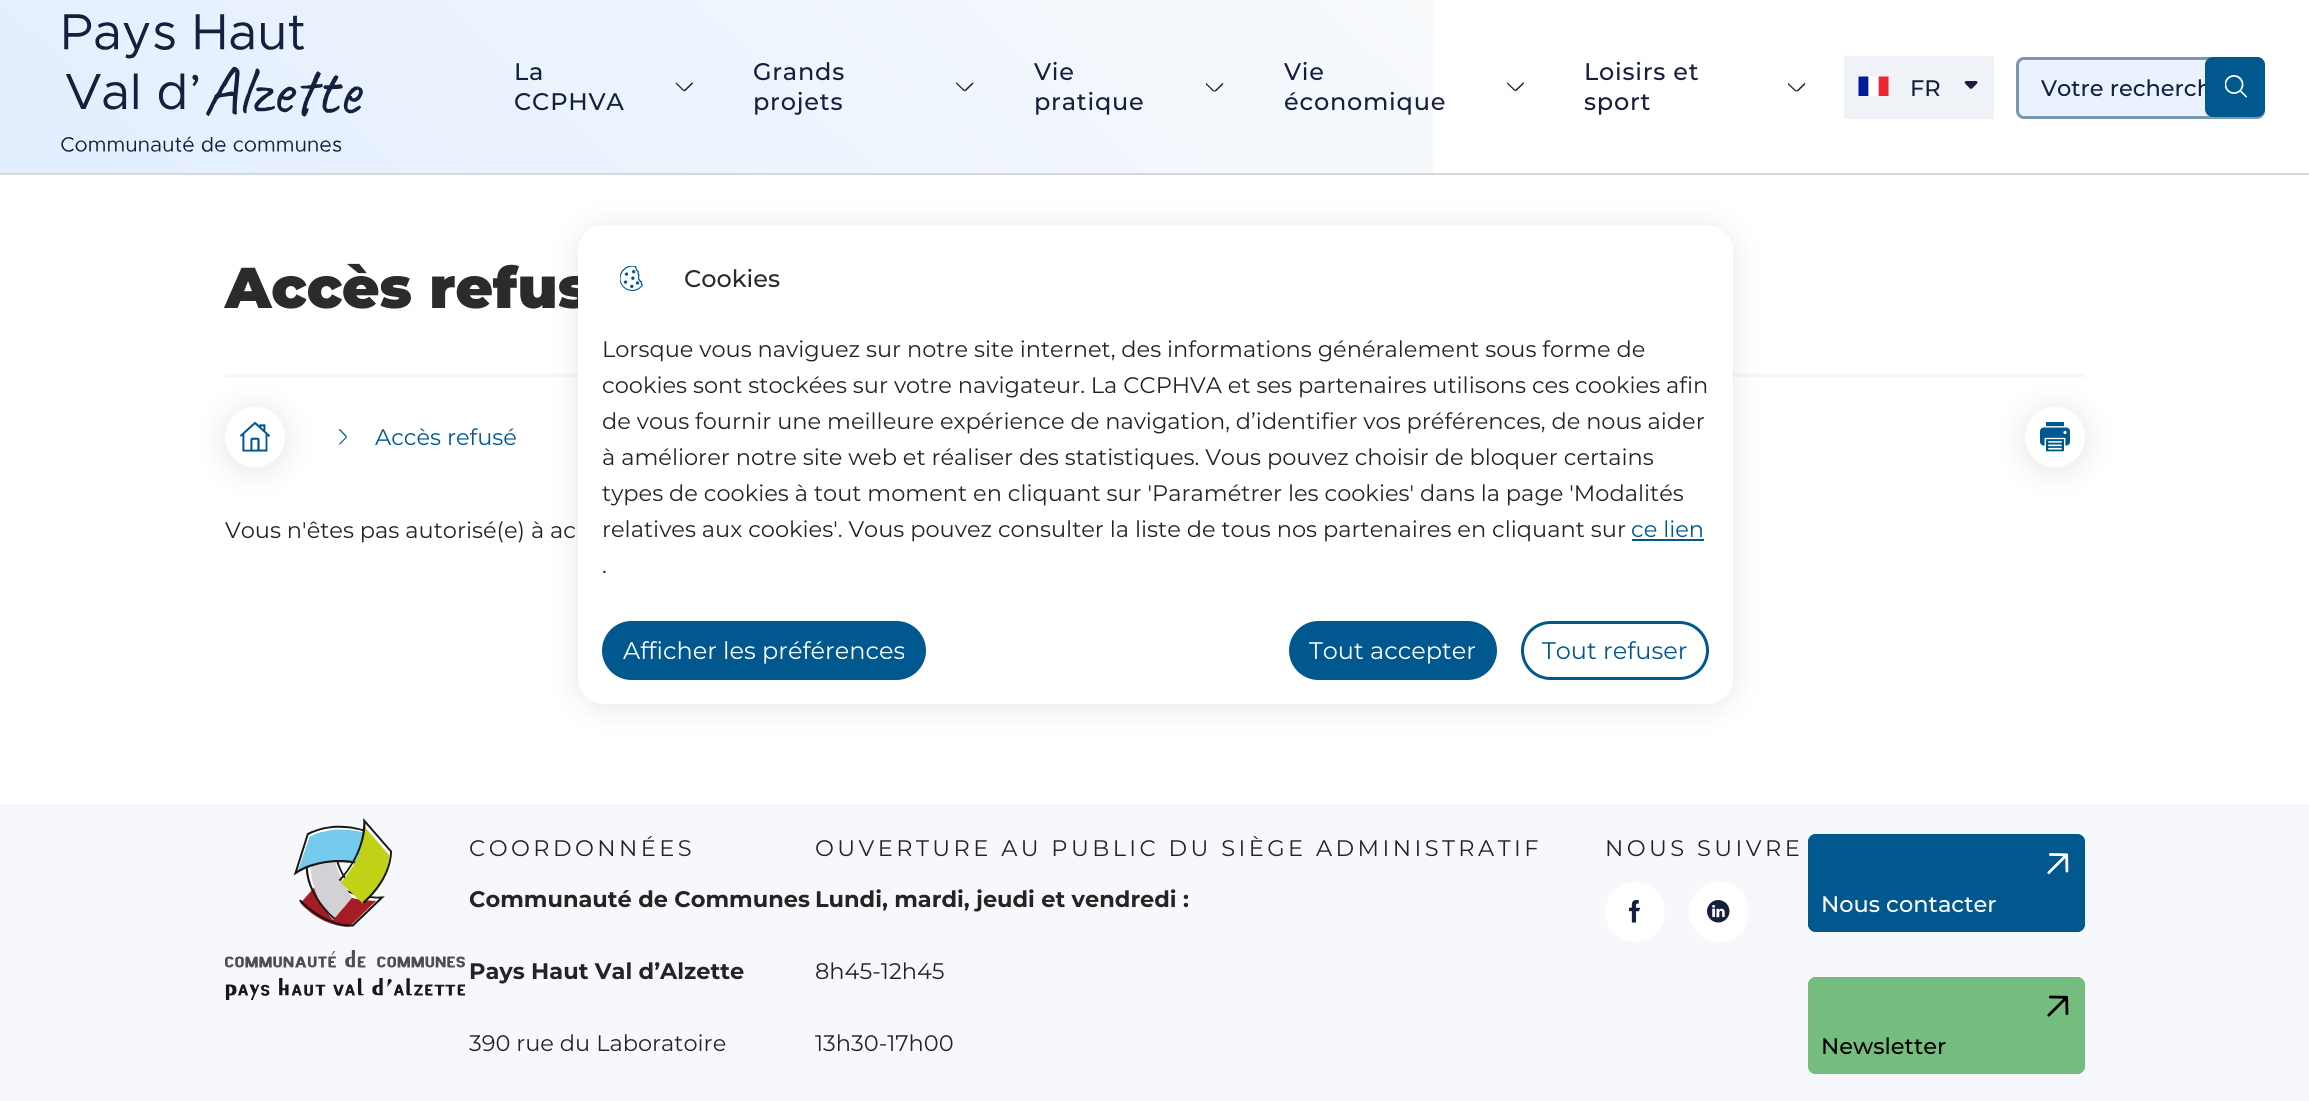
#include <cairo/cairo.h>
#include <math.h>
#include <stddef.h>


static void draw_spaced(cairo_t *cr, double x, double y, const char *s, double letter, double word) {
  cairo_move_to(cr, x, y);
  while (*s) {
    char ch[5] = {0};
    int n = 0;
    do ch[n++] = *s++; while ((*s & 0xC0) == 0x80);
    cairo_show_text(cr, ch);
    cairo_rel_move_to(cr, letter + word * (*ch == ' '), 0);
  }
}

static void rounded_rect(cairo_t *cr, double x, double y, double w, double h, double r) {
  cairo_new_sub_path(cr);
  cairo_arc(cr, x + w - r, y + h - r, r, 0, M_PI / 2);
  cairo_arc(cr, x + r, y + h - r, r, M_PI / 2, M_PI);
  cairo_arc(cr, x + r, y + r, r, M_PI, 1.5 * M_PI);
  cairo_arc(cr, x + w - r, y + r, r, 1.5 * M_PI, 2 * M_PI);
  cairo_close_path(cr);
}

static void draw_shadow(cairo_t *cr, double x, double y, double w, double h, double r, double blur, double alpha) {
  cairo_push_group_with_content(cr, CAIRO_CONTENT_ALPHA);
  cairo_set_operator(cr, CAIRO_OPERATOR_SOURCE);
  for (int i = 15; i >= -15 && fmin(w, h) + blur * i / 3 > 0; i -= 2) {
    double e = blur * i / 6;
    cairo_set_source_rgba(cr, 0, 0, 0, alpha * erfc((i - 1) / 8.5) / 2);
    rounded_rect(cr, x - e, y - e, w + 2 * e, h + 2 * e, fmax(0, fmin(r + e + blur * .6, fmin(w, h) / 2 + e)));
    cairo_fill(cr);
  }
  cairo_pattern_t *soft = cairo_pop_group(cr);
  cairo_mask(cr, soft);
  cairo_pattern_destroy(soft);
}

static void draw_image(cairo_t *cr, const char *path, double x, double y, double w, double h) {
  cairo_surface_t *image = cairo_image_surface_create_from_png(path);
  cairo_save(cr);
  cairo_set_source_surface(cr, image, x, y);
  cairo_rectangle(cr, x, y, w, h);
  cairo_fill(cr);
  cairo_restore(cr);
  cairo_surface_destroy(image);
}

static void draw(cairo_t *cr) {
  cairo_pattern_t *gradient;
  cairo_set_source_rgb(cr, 1, 1, 1);
  cairo_paint(cr);
  cairo_set_source_rgb(cr, 216 / 255.0, 216 / 255.0, 216 / 255.0);
  cairo_rectangle(cr, 0, 173, 2309, 2);
  cairo_fill(cr);
  gradient = cairo_pattern_create_linear(1093, -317, 340, 490);
  cairo_pattern_add_color_stop_rgba(gradient, 0, 248 / 255.0, 250 / 255.0, 252 / 255.0, 1);
  cairo_pattern_add_color_stop_rgba(gradient, 1, 226 / 255.0, 238 / 255.0, 254 / 255.0, 1);
  cairo_set_source(cr, gradient);
  cairo_pattern_destroy(gradient);
  cairo_rectangle(cr, 0, 0, 1433, 173);
  cairo_fill(cr);
  draw_image(cr, "images/1.png", 61, 14, 302, 138);
  draw_image(cr, "images/2.png", 675, 82, 18, 10);
  draw_image(cr, "images/3.png", 956, 82, 18, 10);
  draw_image(cr, "images/4.png", 1205, 83, 19, 9);
  draw_image(cr, "images/5.png", 1506, 82, 19, 9);
  draw_image(cr, "images/6.png", 1787, 83, 19, 9);
  cairo_set_source_rgb(cr, 239 / 255.0, 243 / 255.0, 248 / 255.0);
  cairo_rectangle(cr, 1844, 56, 150, 63);
  cairo_fill(cr);
  draw_image(cr, "images/7.png", 1858, 76, 31, 20);
  draw_image(cr, "images/8.png", 1964, 81, 14, 8);
  cairo_set_source_rgb(cr, 235 / 255.0, 242 / 255.0, 1);
  rounded_rect(cr, 2017.5, 58.5, 246, 59, 6.5);
  cairo_fill_preserve(cr);
  cairo_set_source_rgb(cr, 123 / 255.0, 152 / 255.0, 173 / 255.0);
  cairo_set_line_width(cr, 3);
  cairo_stroke(cr);
  cairo_set_source_rgb(cr, 247 / 255.0, 247 / 255.0, 247 / 255.0);
  cairo_rectangle(cr, 225, 374, 1860, 3);
  cairo_fill(cr);
  cairo_set_source_rgb(cr, 0, 0, 0);
  draw_shadow(cr, 225, 410, 60, 60, 30, 15, 0.1);
  cairo_set_source_rgb(cr, 1, 1, 1);
  cairo_arc(cr, 255, 437, 30, 0, 2 * M_PI);
  cairo_fill(cr);
  draw_image(cr, "images/10.png", 240, 422, 30, 30);
  draw_image(cr, "images/11.png", 339, 429, 8, 16);
  cairo_set_source_rgb(cr, 0, 0, 0);
  draw_shadow(cr, 2025, 410, 60, 60, 30, 15, 0.1);
  cairo_set_source_rgb(cr, 1, 1, 1);
  cairo_arc(cr, 2055, 437, 30, 0, 2 * M_PI);
  cairo_fill(cr);
  draw_image(cr, "images/12.png", 2040, 422, 30, 30);
  cairo_set_source_rgb(cr, 246 / 255.0, 248 / 255.0, 251 / 255.0);
  cairo_rectangle(cr, 0, 804, 2309, 297);
  cairo_fill(cr);
  draw_image(cr, "images/13.png", 225, 818, 240, 182);
  cairo_set_source_rgb(cr, 1, 1, 1);
  cairo_arc(cr, 1635, 912, 30, 0, 2 * M_PI);
  cairo_fill(cr);
  draw_image(cr, "images/14.png", 1629, 900, 12, 23);
  cairo_arc(cr, 1719, 912, 30, 0, 2 * M_PI);
  cairo_fill(cr);
  draw_image(cr, "images/15.png", 1707, 900, 23, 23);
  cairo_set_source_rgb(cr, 0, 88 / 255.0, 143 / 255.0);
  rounded_rect(cr, 1808, 834, 277, 98, 8);
  cairo_fill(cr);
  draw_image(cr, "images/16.png", 2047, 853, 22, 21);
  rounded_rect(cr, 1809, 835, 275, 96, 7);
  cairo_set_line_width(cr, 2);
  cairo_stroke(cr);
  cairo_set_source_rgb(cr, 117 / 255.0, 189 / 255.0, 126 / 255.0);
  rounded_rect(cr, 1808, 977, 277, 97, 8);
  cairo_fill(cr);
  draw_image(cr, "images/17.png", 2047, 995, 22, 22);
  rounded_rect(cr, 1809, 978, 275, 95, 7);
  cairo_stroke(cr);
  cairo_set_source_rgb(cr, 0, 0, 0);
  draw_shadow(cr, 578, 228, 1155, 479, 26, 15, 0.1);
  cairo_select_font_face(cr, "Montserrat Medium", CAIRO_FONT_SLANT_NORMAL, CAIRO_FONT_WEIGHT_NORMAL);
  cairo_set_font_size(cr, 24);
  cairo_set_source_rgb(cr, 20 / 255.0, 32 / 255.0, 62 / 255.0);
  draw_spaced(cr, 514, 80, "La", 0.75, 0);
  draw_spaced(cr, 514, 110, "CCPHVA", 0.75, 0);
  draw_spaced(cr, 753, 80, "Grands", 0.75, 0);
  draw_spaced(cr, 753, 110, "projets", 0.75, 0);
  draw_spaced(cr, 1034, 80, "Vie", 0.75, 0);
  draw_spaced(cr, 1034, 110, "pratique", 0.75, 0);
  draw_spaced(cr, 1284, 80, "Vie", 0.75, 0);
  draw_spaced(cr, 1284, 110, "économique", 0.75, 0);
  draw_spaced(cr, 1584, 80, "Loisirs et", 0.75, 0);
  draw_spaced(cr, 1584, 110, "sport", 0.75, 0);
  cairo_set_font_size(cr, 22.5);
  cairo_move_to(cr, 1910, 96);
  cairo_show_text(cr, "FR");
  cairo_move_to(cr, 2041, 96);
  cairo_show_text(cr, "Votre recherch");
  cairo_set_source_rgb(cr, 0, 88 / 255.0, 143 / 255.0);
  rounded_rect(cr, 2205, 57, 60, 60, 8);
  cairo_fill(cr);
  draw_image(cr, "images/9.png", 2225, 75, 22, 23);
  cairo_select_font_face(cr, "Montserrat Black", CAIRO_FONT_SLANT_NORMAL, CAIRO_FONT_WEIGHT_NORMAL);
  cairo_set_font_size(cr, 57.5);
  cairo_set_source_rgb(cr, 43 / 255.0, 43 / 255.0, 43 / 255.0);
  cairo_move_to(cr, 225, 308);
  cairo_show_text(cr, "Accès refus");
  cairo_select_font_face(cr, "Montserrat", CAIRO_FONT_SLANT_NORMAL, CAIRO_FONT_WEIGHT_NORMAL);
  cairo_set_font_size(cr, 22.5);
  cairo_set_source_rgb(cr, 0, 88 / 255.0, 143 / 255.0);
  cairo_move_to(cr, 375, 445);
  cairo_show_text(cr, "Accès refusé");
  cairo_set_source_rgb(cr, 37 / 255.0, 36 / 255.0, 36 / 255.0);
  cairo_move_to(cr, 225, 538);
  cairo_show_text(cr, "Vous n'êtes pas autorisé(e) à ac");
  draw_spaced(cr, 469, 856, "COORDONNÉES", 3.45, 0);
  cairo_select_font_face(cr, "Montserrat", CAIRO_FONT_SLANT_NORMAL, CAIRO_FONT_WEIGHT_BOLD);
  cairo_move_to(cr, 469, 907);
  cairo_show_text(cr, "Communauté de Communes");
  cairo_move_to(cr, 469, 979);
  cairo_show_text(cr, "Pays Haut Val d’Alzette");
  cairo_select_font_face(cr, "Montserrat", CAIRO_FONT_SLANT_NORMAL, CAIRO_FONT_WEIGHT_NORMAL);
  cairo_move_to(cr, 469, 1051);
  cairo_show_text(cr, "390 rue du Laboratoire");
  draw_spaced(cr, 815, 856, "OUVERTURE AU PUBLIC DU SIÈGE ADMINISTRATIF", 3.45, 0);
  cairo_select_font_face(cr, "Montserrat", CAIRO_FONT_SLANT_NORMAL, CAIRO_FONT_WEIGHT_BOLD);
  cairo_move_to(cr, 815, 907);
  cairo_show_text(cr, "Lundi, mardi, jeudi et vendredi :");
  cairo_select_font_face(cr, "Montserrat", CAIRO_FONT_SLANT_NORMAL, CAIRO_FONT_WEIGHT_NORMAL);
  cairo_move_to(cr, 815, 979);
  cairo_show_text(cr, "8h45-12h45");
  cairo_move_to(cr, 815, 1051);
  cairo_show_text(cr, "13h30-17h00");
  draw_spaced(cr, 1605, 856, "NOUS SUIVRE", 3.45, 0);
  cairo_select_font_face(cr, "Montserrat Medium", CAIRO_FONT_SLANT_NORMAL, CAIRO_FONT_WEIGHT_NORMAL);
  cairo_set_source_rgb(cr, 1, 1, 1);
  cairo_move_to(cr, 1821, 912);
  cairo_show_text(cr, "Nous contacter");
  cairo_set_source_rgb(cr, 0, 0, 0);
  cairo_move_to(cr, 1821, 1054);
  cairo_show_text(cr, "Newsletter");
  cairo_set_source_rgb(cr, 1, 1, 1);
  rounded_rect(cr, 578, 225, 1155, 479, 26);
  cairo_fill(cr);
  draw_image(cr, "images/18.png", 620, 266, 23, 25);
  cairo_set_font_size(cr, 24);
  cairo_set_source_rgb(cr, 43 / 255.0, 43 / 255.0, 43 / 255.0);
  cairo_move_to(cr, 684, 287);
  cairo_show_text(cr, "Cookies");
  cairo_select_font_face(cr, "Montserrat", CAIRO_FONT_SLANT_NORMAL, CAIRO_FONT_WEIGHT_NORMAL);
  cairo_set_font_size(cr, 22.5);
  cairo_set_source_rgb(cr, 37 / 255.0, 36 / 255.0, 36 / 255.0);
  cairo_move_to(cr, 602, 357);
  cairo_show_text(cr, "Lorsque vous naviguez sur notre site internet, des informations généralement sous forme de");
  cairo_move_to(cr, 602, 393);
  cairo_show_text(cr, "cookies sont stockées sur votre navigateur. La CCPHVA et ses partenaires utilisons ces cookies afin");
  cairo_move_to(cr, 602, 429);
  cairo_show_text(cr, "de vous fournir une meilleure expérience de navigation, d’identifier vos préférences, de nous aider");
  cairo_move_to(cr, 602, 465);
  cairo_show_text(cr, "à améliorer notre site web et réaliser des statistiques. Vous pouvez choisir de bloquer certains");
  cairo_move_to(cr, 602, 501);
  cairo_show_text(cr, "types de cookies à tout moment en cliquant sur 'Paramétrer les cookies' dans la page 'Modalités");
  cairo_move_to(cr, 602, 537);
  cairo_show_text(cr, "relatives aux cookies'. Vous pouvez consulter la liste de tous nos partenaires en cliquant sur");
  cairo_set_source_rgb(cr, 0, 88 / 255.0, 143 / 255.0);
  cairo_move_to(cr, 1631, 537);
  cairo_show_text(cr, "ce lien");
  cairo_rectangle(cr, 1632, 539, 72, 2);
  cairo_fill(cr);
  cairo_set_source_rgb(cr, 37 / 255.0, 36 / 255.0, 36 / 255.0);
  cairo_move_to(cr, 602, 573);
  cairo_show_text(cr, ".");
  cairo_set_source_rgb(cr, 0, 88 / 255.0, 143 / 255.0);
  rounded_rect(cr, 603.5, 622.5, 321, 56, 28);
  cairo_fill_preserve(cr);
  cairo_set_line_width(cr, 3);
  cairo_stroke(cr);
  cairo_set_font_size(cr, 24);
  cairo_set_source_rgb(cr, 1, 1, 1);
  cairo_move_to(cr, 623, 659);
  cairo_show_text(cr, "Afficher les préférences");
  cairo_set_source_rgb(cr, 0, 88 / 255.0, 143 / 255.0);
  rounded_rect(cr, 1290.5, 622.5, 205, 56, 28);
  cairo_fill_preserve(cr);
  cairo_stroke(cr);
  cairo_set_source_rgb(cr, 1, 1, 1);
  cairo_move_to(cr, 1309, 659);
  cairo_show_text(cr, "Tout accepter");
  rounded_rect(cr, 1522.5, 622.5, 185, 56, 28);
  cairo_set_source_rgb(cr, 0, 88 / 255.0, 143 / 255.0);
  cairo_stroke(cr);
  cairo_move_to(cr, 1542, 659);
  cairo_show_text(cr, "Tout refuser");
}

int main(void) {
  cairo_surface_t *surface = cairo_image_surface_create(CAIRO_FORMAT_RGB24, 2309, 1101);
  cairo_t *cr = cairo_create(surface);
  cairo_font_options_t *options = cairo_font_options_create();
  cairo_font_options_set_hint_metrics(options, CAIRO_HINT_METRICS_OFF);
  cairo_font_options_set_hint_style(options, CAIRO_HINT_STYLE_NONE);
  cairo_set_font_options(cr, options);
  cairo_set_miter_limit(cr, 4);
  draw(cr);
  cairo_surface_write_to_png(surface, "out.png");
  cairo_font_options_destroy(options);
  cairo_destroy(cr);
  cairo_surface_destroy(surface);
  return 0;
}
